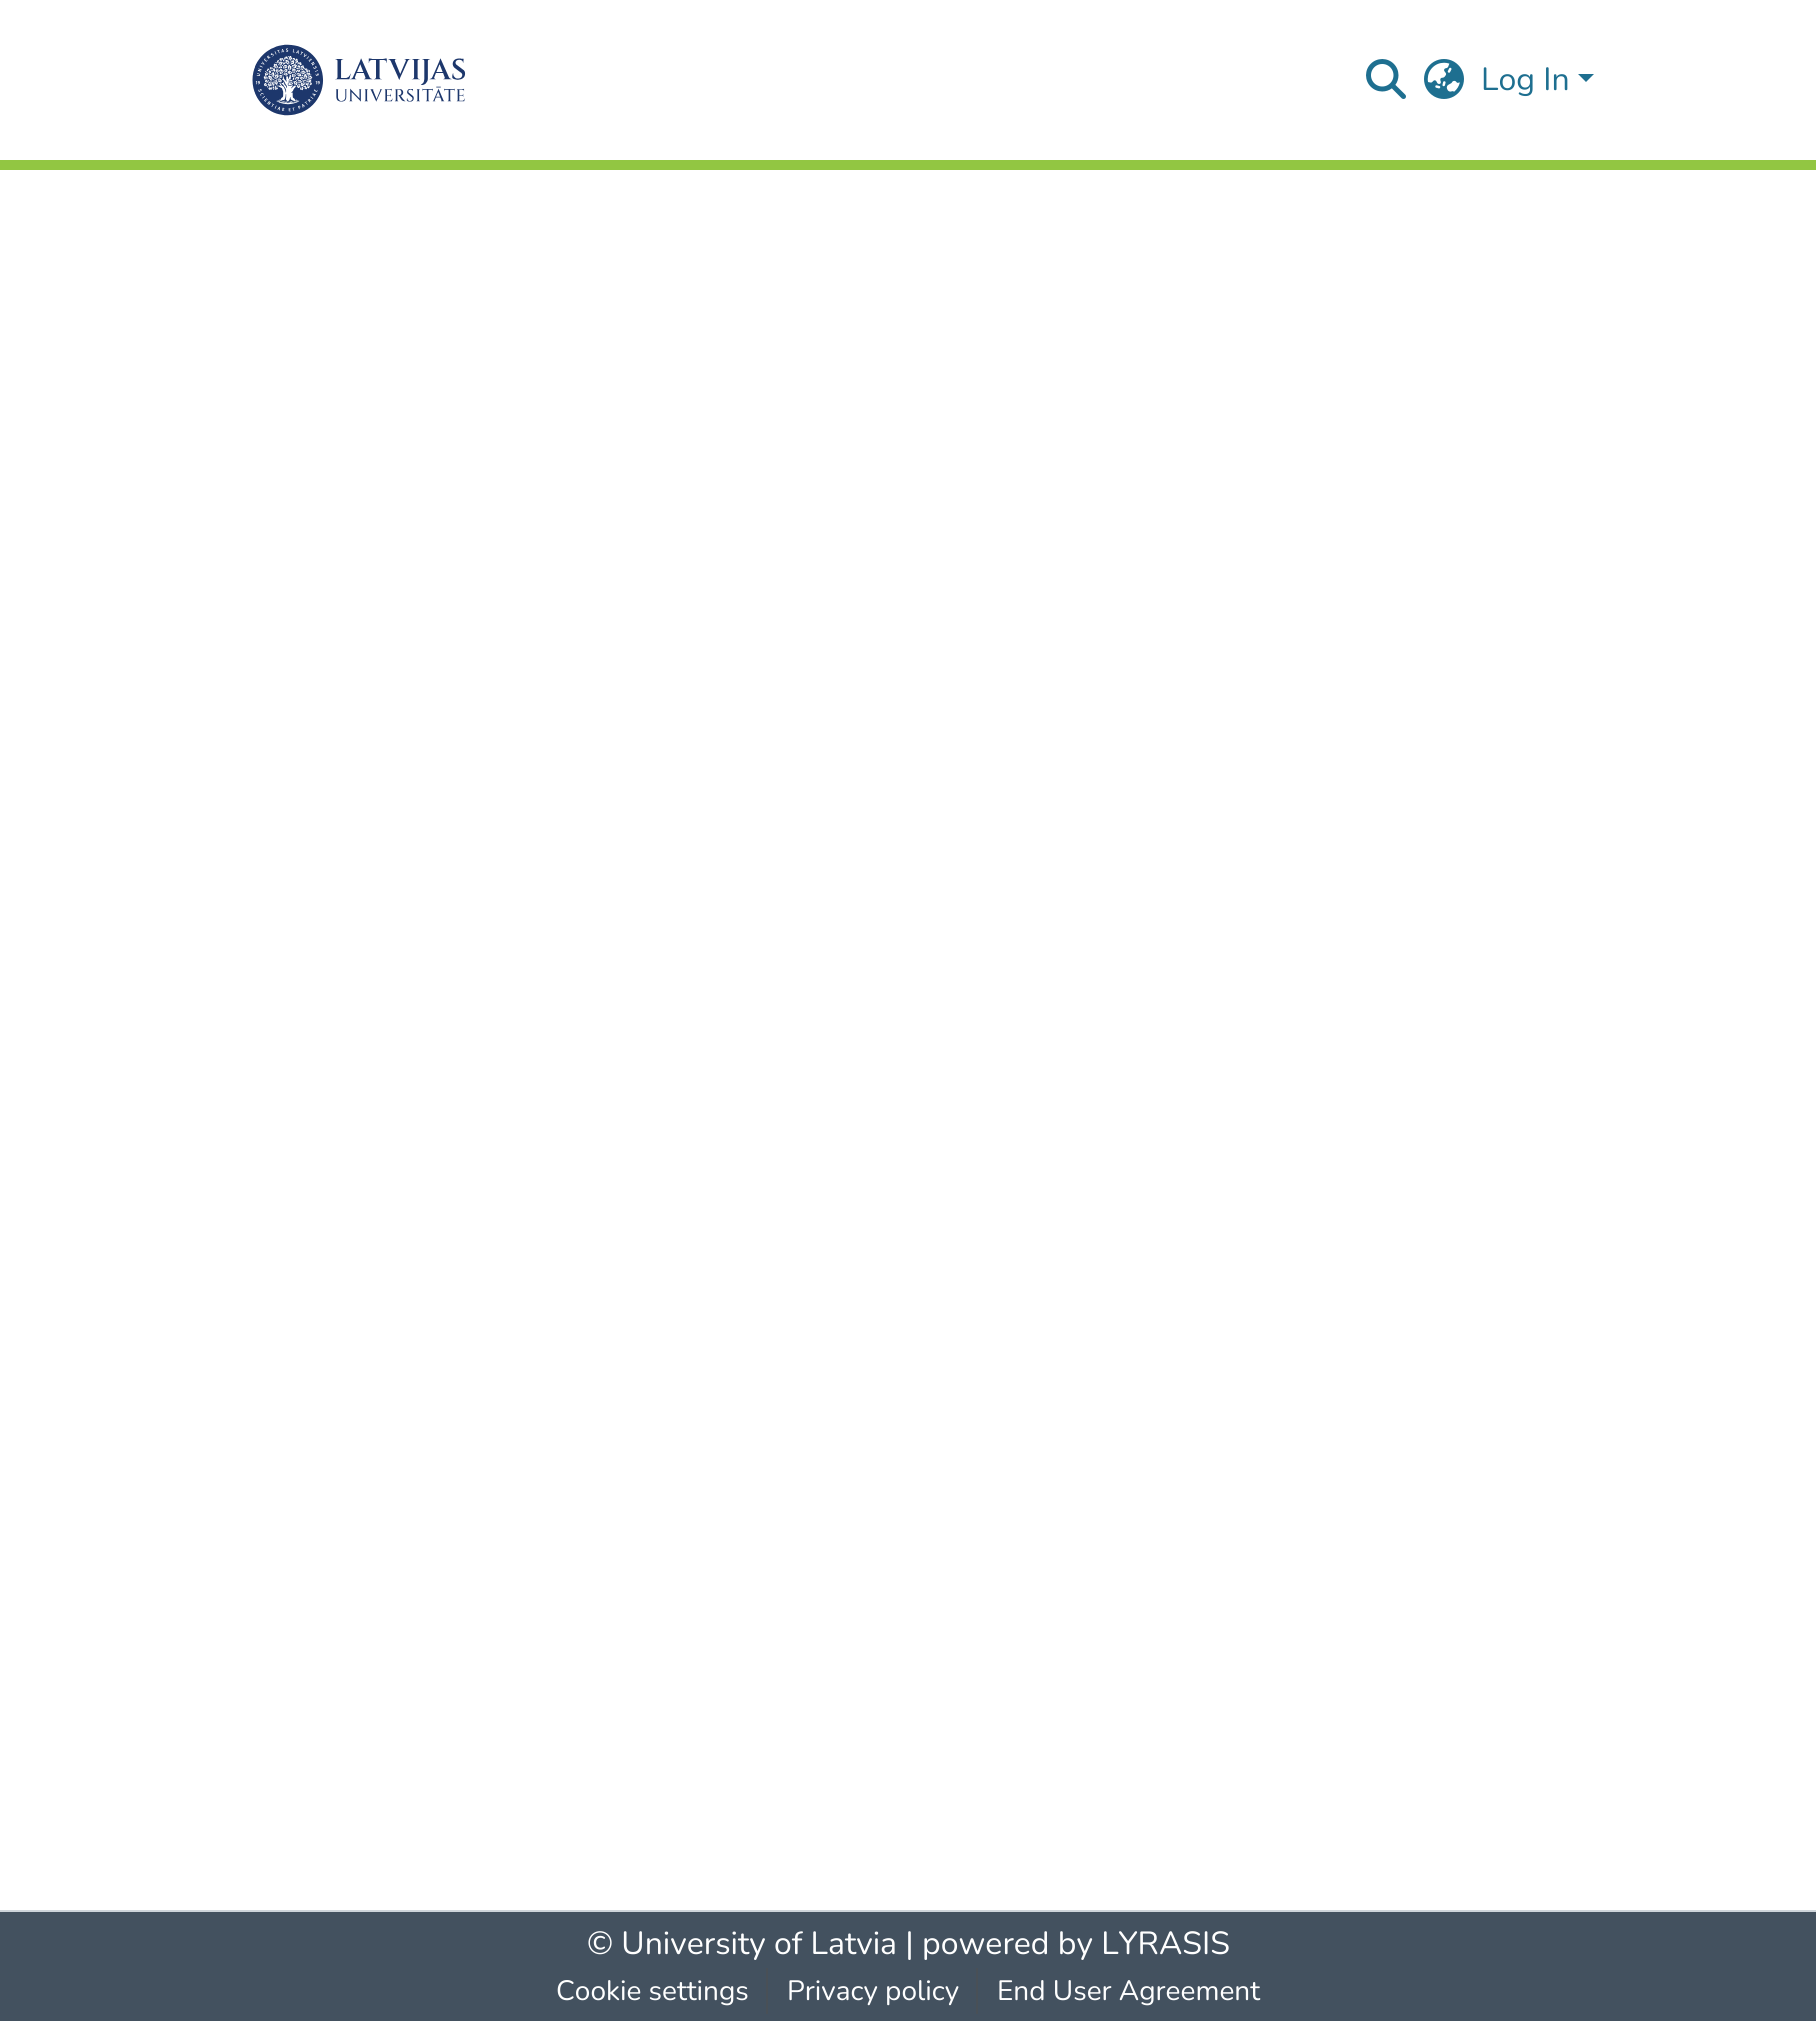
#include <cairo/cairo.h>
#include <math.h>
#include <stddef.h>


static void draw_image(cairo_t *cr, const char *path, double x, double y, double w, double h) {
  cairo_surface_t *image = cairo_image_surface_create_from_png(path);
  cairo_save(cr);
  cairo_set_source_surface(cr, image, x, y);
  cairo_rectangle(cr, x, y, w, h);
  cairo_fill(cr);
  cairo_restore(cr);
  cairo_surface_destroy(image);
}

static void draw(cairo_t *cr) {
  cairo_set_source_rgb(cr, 1, 1, 1);
  cairo_paint(cr);
  cairo_set_source_rgb(cr, 146 / 255.0, 198 / 255.0, 66 / 255.0);
  cairo_rectangle(cr, 0, 160, 1816, 10);
  cairo_fill(cr);
  draw_image(cr, "images/1.png", 252, 44, 214, 72);
  draw_image(cr, "images/2.png", 1366, 59, 40, 40);
  draw_image(cr, "images/3.png", 1424, 59, 40, 40);
  cairo_set_source_rgb(cr, 30 / 255.0, 111 / 255.0, 144 / 255.0);
  cairo_new_path(cr);
  cairo_move_to(cr, 1578, 74);
  cairo_line_to(cr, 1594, 74);
  cairo_line_to(cr, 1586, 82);
  cairo_close_path(cr);
  cairo_fill(cr);
  cairo_set_source_rgb(cr, 67 / 255.0, 81 / 255.0, 95 / 255.0);
  cairo_rectangle(cr, 0, 1912, 1816, 109);
  cairo_fill(cr);
  cairo_set_source_rgb(cr, 206 / 255.0, 212 / 255.0, 218 / 255.0);
  cairo_rectangle(cr, 0, 1910, 1816, 2);
  cairo_fill(cr);
  cairo_set_source_rgb(cr, 73 / 255.0, 80 / 255.0, 87 / 255.0);
  cairo_rectangle(cr, 766, 1968, 2, 46);
  cairo_fill(cr);
  cairo_rectangle(cr, 976, 1968, 2, 46);
  cairo_fill(cr);
  cairo_select_font_face(cr, "Nunito", CAIRO_FONT_SLANT_NORMAL, CAIRO_FONT_WEIGHT_NORMAL);
  cairo_set_font_size(cr, 32);
  cairo_set_source_rgb(cr, 30 / 255.0, 111 / 255.0, 144 / 255.0);
  cairo_move_to(cr, 1481, 90);
  cairo_show_text(cr, "Log In");
  cairo_set_source_rgb(cr, 1, 1, 1);
  cairo_move_to(cr, 587, 1954);
  cairo_show_text(cr, "© University of Latvia | powered by LYRASIS");
  cairo_set_font_size(cr, 28);
  cairo_move_to(cr, 556, 2000);
  cairo_show_text(cr, "Cookie settings");
  cairo_move_to(cr, 787, 2000);
  cairo_show_text(cr, "Privacy policy");
  cairo_move_to(cr, 997, 2000);
  cairo_show_text(cr, "End User Agreement");
}

int main(void) {
  cairo_surface_t *surface = cairo_image_surface_create(CAIRO_FORMAT_RGB24, 1816, 2021);
  cairo_t *cr = cairo_create(surface);
  cairo_font_options_t *options = cairo_font_options_create();
  cairo_font_options_set_hint_metrics(options, CAIRO_HINT_METRICS_OFF);
  cairo_font_options_set_hint_style(options, CAIRO_HINT_STYLE_NONE);
  cairo_set_font_options(cr, options);
  cairo_set_miter_limit(cr, 4);
  draw(cr);
  cairo_surface_write_to_png(surface, "out.png");
  cairo_font_options_destroy(options);
  cairo_destroy(cr);
  cairo_surface_destroy(surface);
  return 0;
}
